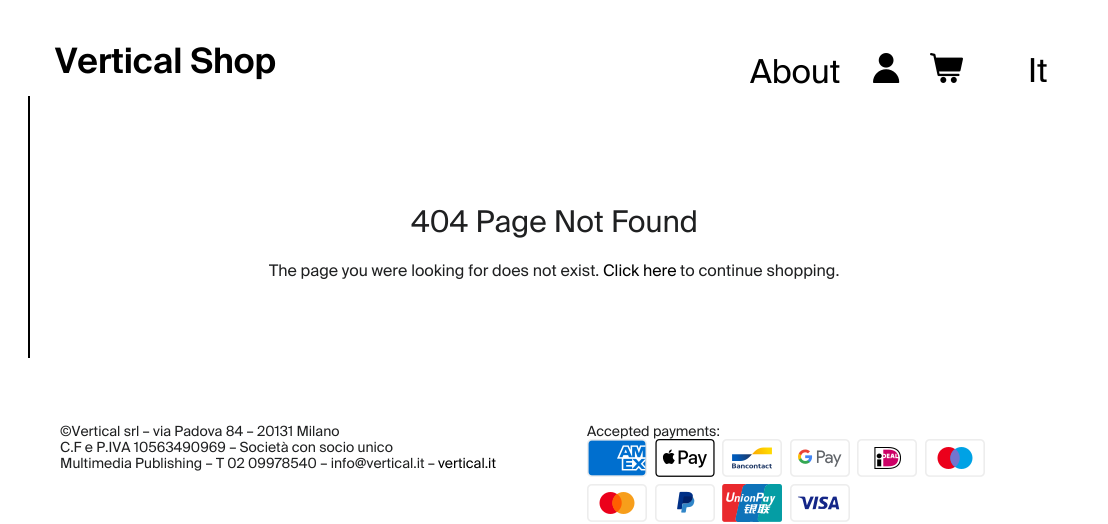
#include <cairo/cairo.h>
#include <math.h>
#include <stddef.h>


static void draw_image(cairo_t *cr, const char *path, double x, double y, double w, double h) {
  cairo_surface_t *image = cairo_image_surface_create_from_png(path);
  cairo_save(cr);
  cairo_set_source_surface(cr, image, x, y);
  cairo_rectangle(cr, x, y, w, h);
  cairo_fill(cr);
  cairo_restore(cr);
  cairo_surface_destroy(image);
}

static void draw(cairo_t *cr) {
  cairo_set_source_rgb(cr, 1, 1, 1);
  cairo_paint(cr);
  draw_image(cr, "images/1.png", 873, 53, 27, 30);
  draw_image(cr, "images/2.png", 930, 53, 33, 30);
  cairo_set_source_rgb(cr, 0, 0, 0);
  cairo_rectangle(cr, 28, 96, 2, 262);
  cairo_fill(cr);
  draw_image(cr, "images/3.png", 587, 439, 60, 38);
  draw_image(cr, "images/4.png", 655, 439, 60, 38);
  draw_image(cr, "images/5.png", 722, 439, 60, 38);
  draw_image(cr, "images/6.png", 790, 439, 60, 38);
  draw_image(cr, "images/7.png", 857, 439, 60, 38);
  draw_image(cr, "images/8.png", 925, 439, 60, 38);
  draw_image(cr, "images/9.png", 587, 484, 60, 38);
  draw_image(cr, "images/10.png", 655, 484, 60, 38);
  draw_image(cr, "images/11.png", 722, 484, 60, 38);
  draw_image(cr, "images/12.png", 790, 484, 60, 38);
  cairo_select_font_face(cr, "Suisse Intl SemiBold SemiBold", CAIRO_FONT_SLANT_NORMAL, CAIRO_FONT_WEIGHT_NORMAL);
  cairo_set_font_size(cr, 35);
  cairo_move_to(cr, 55, 73);
  cairo_show_text(cr, "Vertical Shop");
  cairo_select_font_face(cr, "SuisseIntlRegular", CAIRO_FONT_SLANT_NORMAL, CAIRO_FONT_WEIGHT_NORMAL);
  cairo_set_font_size(cr, 33);
  cairo_move_to(cr, 750, 83);
  cairo_show_text(cr, "About");
  cairo_move_to(cr, 1028, 82);
  cairo_show_text(cr, "It");
  cairo_set_font_size(cr, 30);
  cairo_set_source_rgb(cr, 31 / 255.0, 32 / 255.0, 33 / 255.0);
  cairo_move_to(cr, 411, 232);
  cairo_show_text(cr, "404 Page Not Found");
  cairo_set_font_size(cr, 16);
  cairo_move_to(cr, 269, 276);
  cairo_show_text(cr, "The page you were looking for does not exist.");
  cairo_set_source_rgb(cr, 0, 0, 0);
  cairo_move_to(cr, 603, 276);
  cairo_show_text(cr, "Click here");
  cairo_set_source_rgb(cr, 31 / 255.0, 32 / 255.0, 33 / 255.0);
  cairo_move_to(cr, 680, 276);
  cairo_show_text(cr, "to continue shopping.");
  cairo_set_font_size(cr, 14);
  cairo_move_to(cr, 60, 436);
  cairo_show_text(cr, "©Vertical srl – via Padova 84 – 20131 Milano");
  cairo_move_to(cr, 60, 452);
  cairo_show_text(cr, "C.F e P.IVA 10563490969 – Società con socio unico");
  cairo_move_to(cr, 60, 468);
  cairo_show_text(cr, "Multimedia Publishing – T 02 09978540 – info@vertical.it –");
  cairo_set_source_rgb(cr, 0, 0, 0);
  cairo_move_to(cr, 438, 468);
  cairo_show_text(cr, "vertical.it");
  cairo_set_source_rgb(cr, 31 / 255.0, 32 / 255.0, 33 / 255.0);
  cairo_move_to(cr, 587, 436);
  cairo_show_text(cr, "Accepted payments:");
}

int main(void) {
  cairo_surface_t *surface = cairo_image_surface_create(CAIRO_FORMAT_RGB24, 1108, 524);
  cairo_t *cr = cairo_create(surface);
  cairo_font_options_t *options = cairo_font_options_create();
  cairo_font_options_set_hint_metrics(options, CAIRO_HINT_METRICS_OFF);
  cairo_font_options_set_hint_style(options, CAIRO_HINT_STYLE_NONE);
  cairo_set_font_options(cr, options);
  cairo_set_miter_limit(cr, 4);
  draw(cr);
  cairo_surface_write_to_png(surface, "out.png");
  cairo_font_options_destroy(options);
  cairo_destroy(cr);
  cairo_surface_destroy(surface);
  return 0;
}
